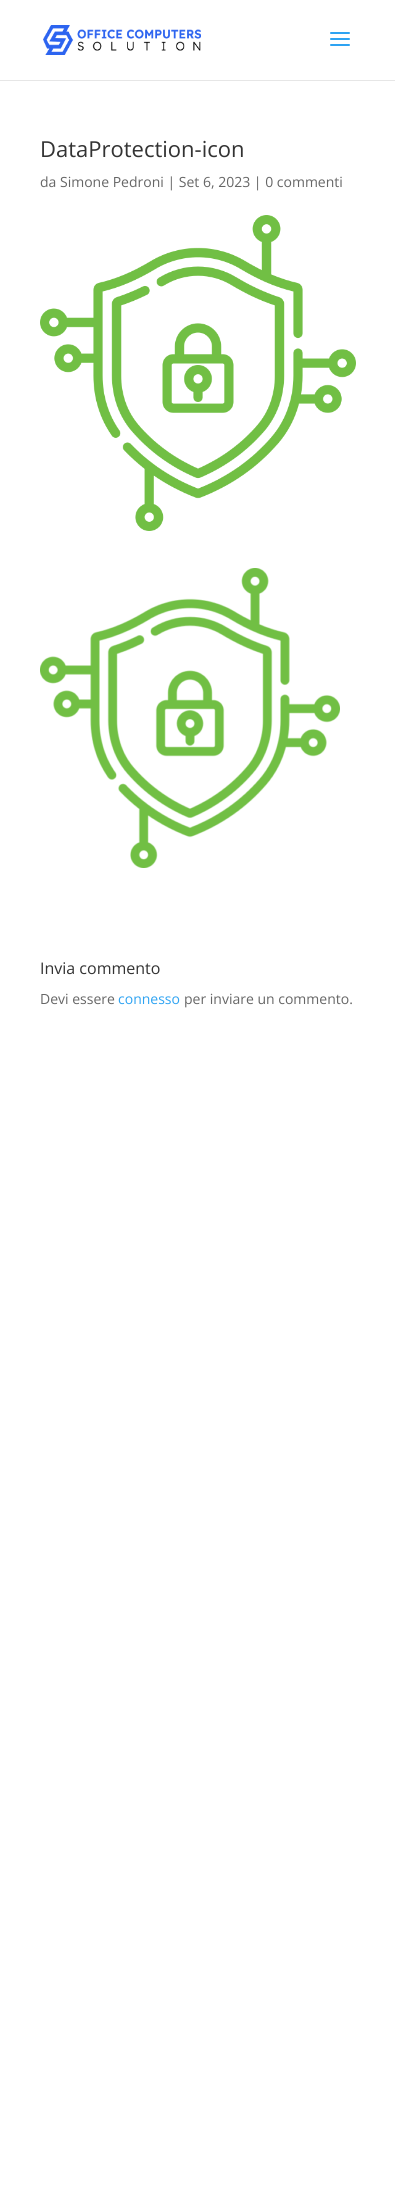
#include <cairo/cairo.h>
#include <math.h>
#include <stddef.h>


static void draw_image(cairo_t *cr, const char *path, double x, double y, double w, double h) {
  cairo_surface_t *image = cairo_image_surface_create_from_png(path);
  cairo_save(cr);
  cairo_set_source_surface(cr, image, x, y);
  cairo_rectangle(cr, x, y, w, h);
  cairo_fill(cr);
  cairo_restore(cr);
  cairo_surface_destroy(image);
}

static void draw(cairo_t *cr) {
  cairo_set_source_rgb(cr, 1, 1, 1);
  cairo_paint(cr);
  cairo_set_source_rgb(cr, 230 / 255.0, 230 / 255.0, 230 / 255.0);
  cairo_rectangle(cr, 0, 80, 395, 1);
  cairo_fill(cr);
  draw_image(cr, "images/1.png", 43, 25, 158, 30);
  draw_image(cr, "images/2.png", 330, 32, 20, 14);
  draw_image(cr, "images/3.png", 40, 215, 316, 316);
  draw_image(cr, "images/4.png", 40, 568, 300, 300);
  cairo_select_font_face(cr, "Open Sans", CAIRO_FONT_SLANT_NORMAL, CAIRO_FONT_WEIGHT_NORMAL);
  cairo_set_font_size(cr, 22);
  cairo_set_source_rgb(cr, 51 / 255.0, 51 / 255.0, 51 / 255.0);
  cairo_move_to(cr, 40, 157);
  cairo_show_text(cr, "DataProtection-icon");
  cairo_set_font_size(cr, 14);
  cairo_set_source_rgb(cr, 102 / 255.0, 102 / 255.0, 102 / 255.0);
  cairo_move_to(cr, 40, 187);
  cairo_show_text(cr, "da Simone Pedroni | Set 6, 2023 | 0 commenti");
  cairo_set_font_size(cr, 16);
  cairo_set_source_rgb(cr, 51 / 255.0, 51 / 255.0, 51 / 255.0);
  cairo_move_to(cr, 40, 974);
  cairo_show_text(cr, "Invia commento");
  cairo_set_font_size(cr, 14);
  cairo_set_source_rgb(cr, 102 / 255.0, 102 / 255.0, 102 / 255.0);
  cairo_move_to(cr, 40, 1004);
  cairo_show_text(cr, "Devi essere");
  cairo_set_source_rgb(cr, 46 / 255.0, 163 / 255.0, 242 / 255.0);
  cairo_move_to(cr, 118, 1004);
  cairo_show_text(cr, "connesso");
  cairo_set_source_rgb(cr, 102 / 255.0, 102 / 255.0, 102 / 255.0);
  cairo_move_to(cr, 184, 1004);
  cairo_show_text(cr, "per inviare un commento.");
}

int main(void) {
  cairo_surface_t *surface = cairo_image_surface_create(CAIRO_FORMAT_RGB24, 395, 2187);
  cairo_t *cr = cairo_create(surface);
  cairo_font_options_t *options = cairo_font_options_create();
  cairo_font_options_set_hint_metrics(options, CAIRO_HINT_METRICS_OFF);
  cairo_font_options_set_hint_style(options, CAIRO_HINT_STYLE_NONE);
  cairo_set_font_options(cr, options);
  cairo_set_miter_limit(cr, 4);
  draw(cr);
  cairo_surface_write_to_png(surface, "out.png");
  cairo_font_options_destroy(options);
  cairo_destroy(cr);
  cairo_surface_destroy(surface);
  return 0;
}
